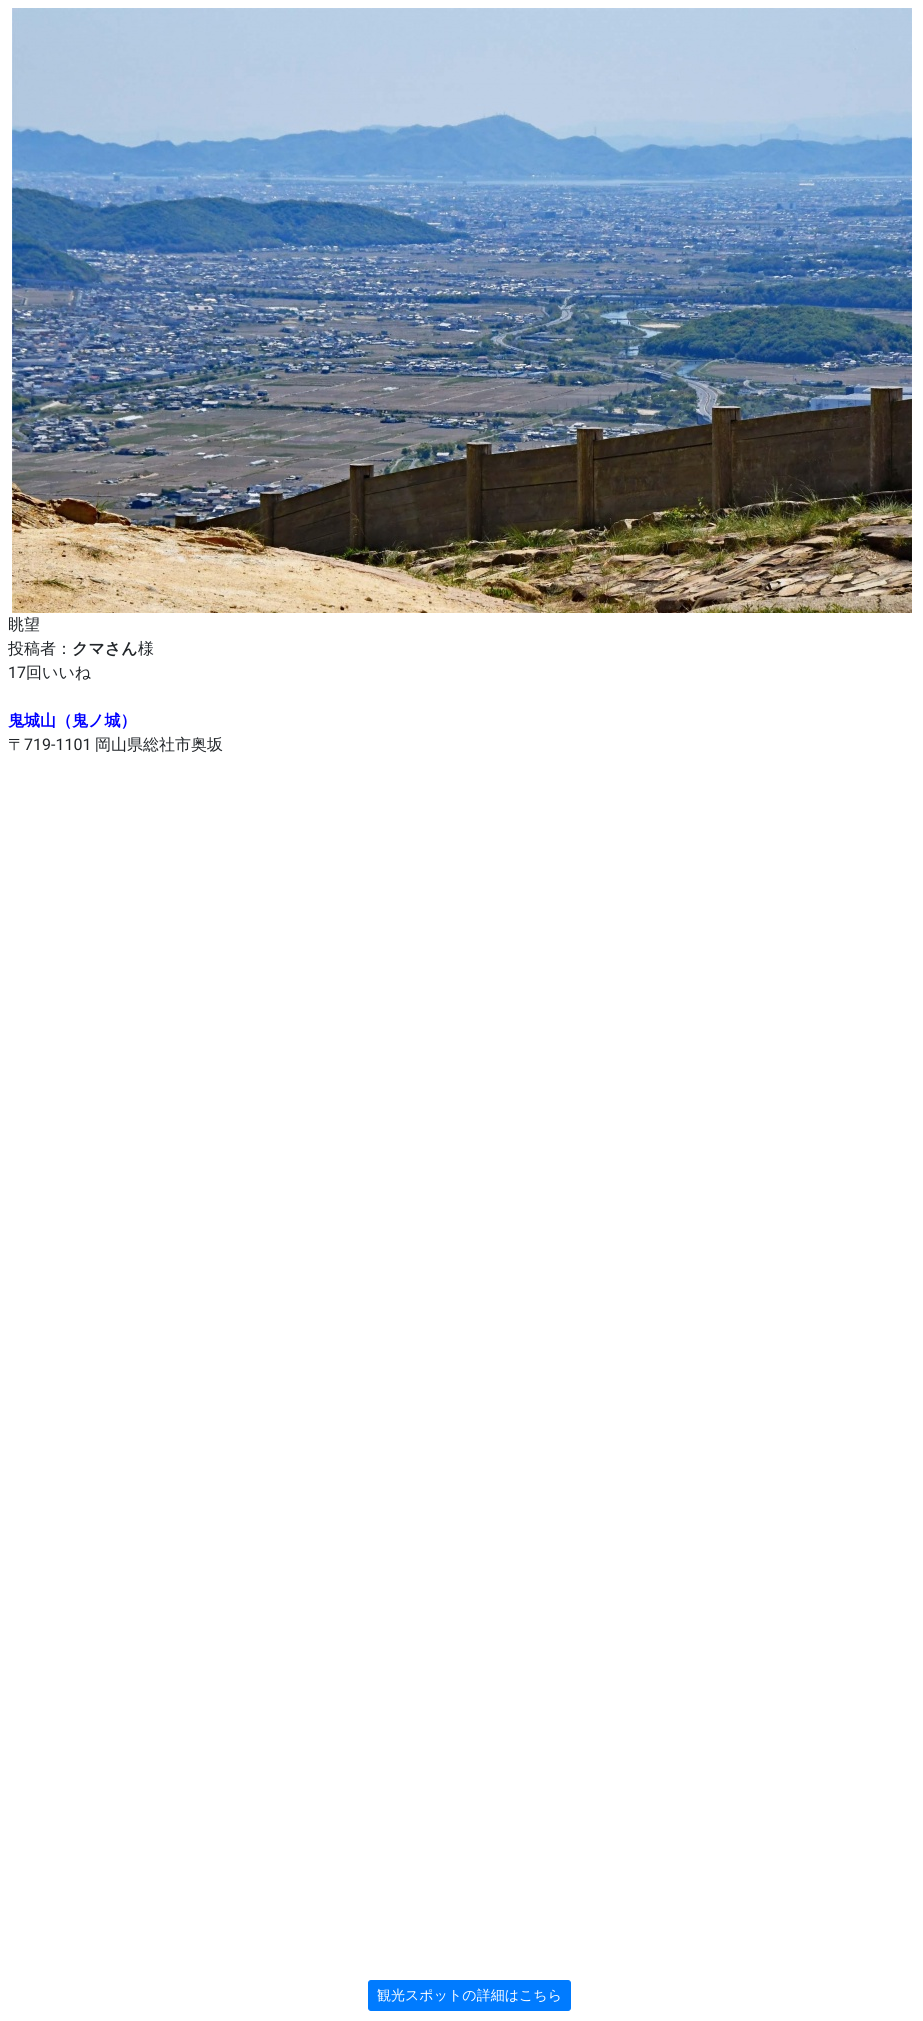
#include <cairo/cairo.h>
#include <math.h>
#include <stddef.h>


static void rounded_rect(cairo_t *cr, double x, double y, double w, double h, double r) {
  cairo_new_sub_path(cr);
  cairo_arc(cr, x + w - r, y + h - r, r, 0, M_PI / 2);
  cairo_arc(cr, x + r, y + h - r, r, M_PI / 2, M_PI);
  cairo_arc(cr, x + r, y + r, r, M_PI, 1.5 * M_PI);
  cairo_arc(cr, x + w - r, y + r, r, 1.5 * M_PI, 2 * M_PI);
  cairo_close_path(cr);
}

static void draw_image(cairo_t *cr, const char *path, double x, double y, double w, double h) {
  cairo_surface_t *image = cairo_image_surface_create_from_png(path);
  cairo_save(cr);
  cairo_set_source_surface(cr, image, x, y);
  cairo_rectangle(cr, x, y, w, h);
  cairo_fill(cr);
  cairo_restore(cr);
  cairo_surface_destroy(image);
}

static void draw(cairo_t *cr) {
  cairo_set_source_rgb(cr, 1, 1, 1);
  cairo_paint(cr);
  draw_image(cr, "images/1.png", 12, 8, 900, 605);
  cairo_set_source_rgb(cr, 0, 123 / 255.0, 1);
  rounded_rect(cr, 368.5, 1980.5, 202, 30, 2.5);
  cairo_fill_preserve(cr);
  cairo_set_line_width(cr, 1);
  cairo_stroke(cr);
  cairo_select_font_face(cr, "WenQuanYi Zen Hei Medium", CAIRO_FONT_SLANT_NORMAL, CAIRO_FONT_WEIGHT_NORMAL);
  cairo_set_font_size(cr, 16);
  cairo_set_source_rgb(cr, 33 / 255.0, 37 / 255.0, 41 / 255.0);
  cairo_move_to(cr, 8, 630);
  cairo_show_text(cr, "眺望");
  cairo_move_to(cr, 8, 654);
  cairo_show_text(cr, "投稿者：");
  cairo_select_font_face(cr, "WenQuanYi Zen Hei", CAIRO_FONT_SLANT_NORMAL, CAIRO_FONT_WEIGHT_BOLD);
  cairo_move_to(cr, 72, 654);
  cairo_show_text(cr, "クマさん");
  cairo_select_font_face(cr, "WenQuanYi Zen Hei Medium", CAIRO_FONT_SLANT_NORMAL, CAIRO_FONT_WEIGHT_NORMAL);
  cairo_move_to(cr, 138, 654);
  cairo_show_text(cr, "様");
  cairo_select_font_face(cr, "Roboto", CAIRO_FONT_SLANT_NORMAL, CAIRO_FONT_WEIGHT_NORMAL);
  cairo_move_to(cr, 8, 678);
  cairo_show_text(cr, "17");
  cairo_select_font_face(cr, "WenQuanYi Zen Hei Medium", CAIRO_FONT_SLANT_NORMAL, CAIRO_FONT_WEIGHT_NORMAL);
  cairo_move_to(cr, 26, 678);
  cairo_show_text(cr, "回いいね");
  cairo_select_font_face(cr, "WenQuanYi Zen Hei", CAIRO_FONT_SLANT_NORMAL, CAIRO_FONT_WEIGHT_BOLD);
  cairo_set_source_rgb(cr, 0, 0, 1);
  cairo_move_to(cr, 8, 726);
  cairo_show_text(cr, "鬼城山（鬼ノ城）");
  cairo_select_font_face(cr, "WenQuanYi Zen Hei Medium", CAIRO_FONT_SLANT_NORMAL, CAIRO_FONT_WEIGHT_NORMAL);
  cairo_set_source_rgb(cr, 33 / 255.0, 37 / 255.0, 41 / 255.0);
  cairo_move_to(cr, 8, 750);
  cairo_show_text(cr, "〒");
  cairo_select_font_face(cr, "Roboto", CAIRO_FONT_SLANT_NORMAL, CAIRO_FONT_WEIGHT_NORMAL);
  cairo_move_to(cr, 24, 750);
  cairo_show_text(cr, "719-1101");
  cairo_select_font_face(cr, "WenQuanYi Zen Hei Medium", CAIRO_FONT_SLANT_NORMAL, CAIRO_FONT_WEIGHT_NORMAL);
  cairo_move_to(cr, 95, 750);
  cairo_show_text(cr, "岡山県総社市奥坂");
  cairo_set_font_size(cr, 14);
  cairo_set_source_rgb(cr, 1, 1, 1);
  cairo_move_to(cr, 377, 2000);
  cairo_show_text(cr, "観光スポットの詳細はこちら");
}

int main(void) {
  cairo_surface_t *surface = cairo_image_surface_create(CAIRO_FORMAT_RGB24, 923, 2021);
  cairo_t *cr = cairo_create(surface);
  cairo_font_options_t *options = cairo_font_options_create();
  cairo_font_options_set_hint_metrics(options, CAIRO_HINT_METRICS_OFF);
  cairo_font_options_set_hint_style(options, CAIRO_HINT_STYLE_NONE);
  cairo_set_font_options(cr, options);
  cairo_set_miter_limit(cr, 4);
  draw(cr);
  cairo_surface_write_to_png(surface, "out.png");
  cairo_font_options_destroy(options);
  cairo_destroy(cr);
  cairo_surface_destroy(surface);
  return 0;
}
